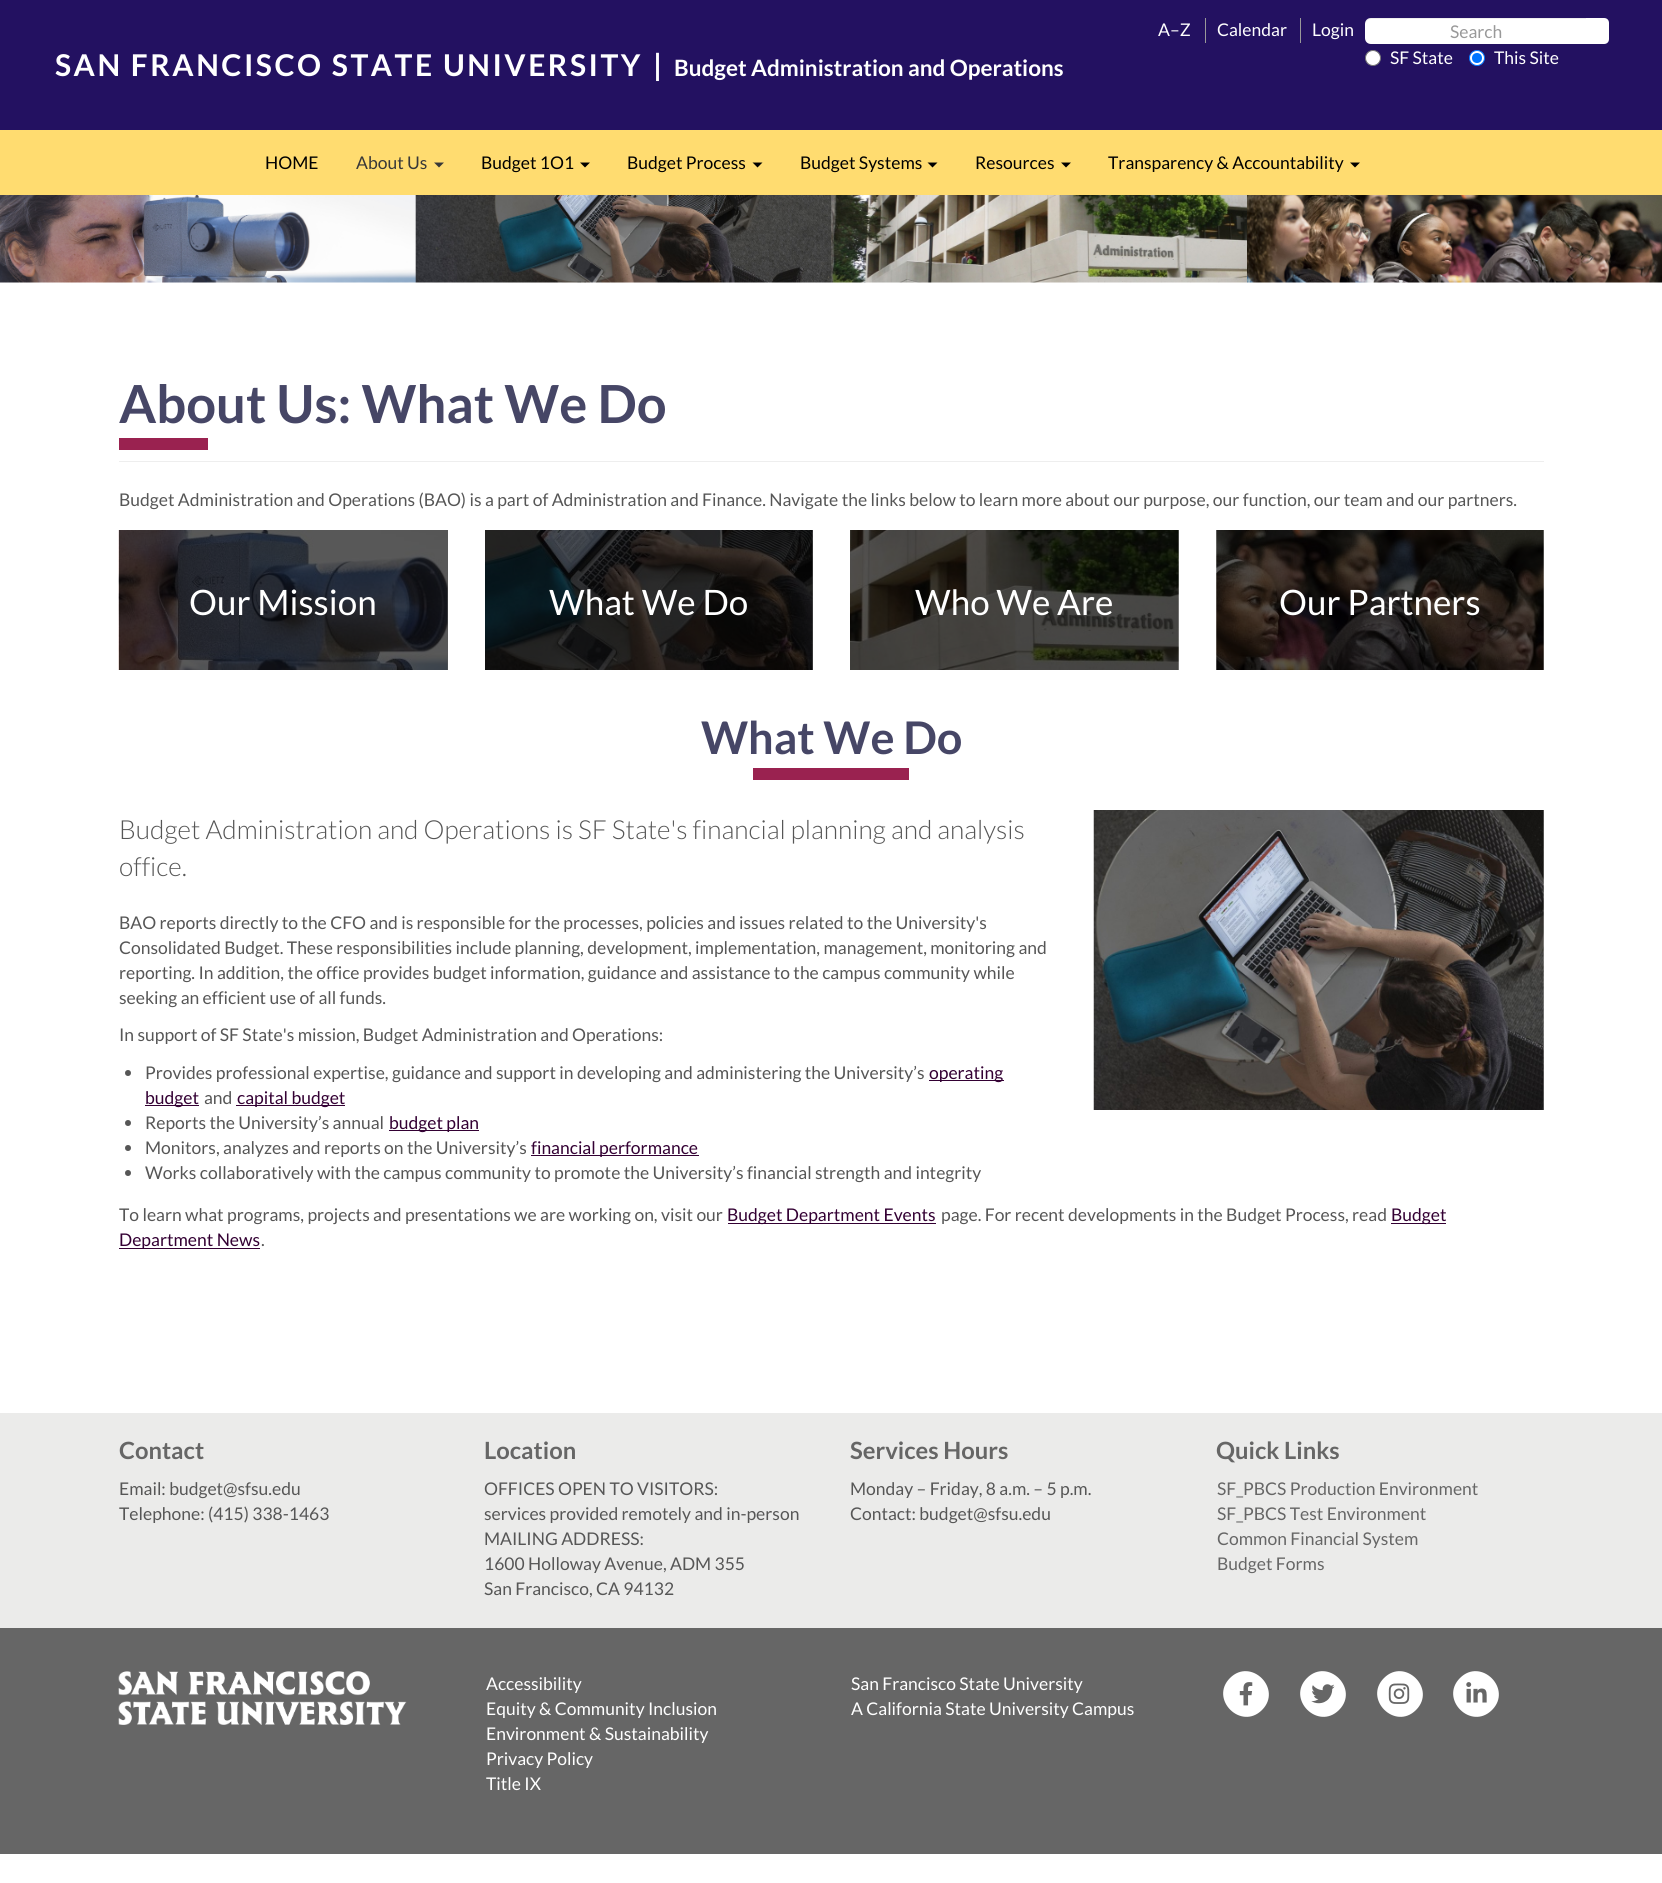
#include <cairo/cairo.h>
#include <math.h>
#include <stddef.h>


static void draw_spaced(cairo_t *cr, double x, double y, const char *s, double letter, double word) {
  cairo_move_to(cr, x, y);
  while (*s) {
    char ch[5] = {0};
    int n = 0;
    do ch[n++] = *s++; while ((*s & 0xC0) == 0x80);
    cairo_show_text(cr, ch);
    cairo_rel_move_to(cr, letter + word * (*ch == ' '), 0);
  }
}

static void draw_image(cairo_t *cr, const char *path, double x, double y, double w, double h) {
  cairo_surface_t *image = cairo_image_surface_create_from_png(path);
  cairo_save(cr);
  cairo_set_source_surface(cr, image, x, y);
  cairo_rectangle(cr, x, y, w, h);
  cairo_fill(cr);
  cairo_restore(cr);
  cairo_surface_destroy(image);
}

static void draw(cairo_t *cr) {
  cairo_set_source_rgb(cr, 1, 1, 1);
  cairo_paint(cr);
  cairo_set_source_rgb(cr, 89 / 255.0, 89 / 255.0, 89 / 255.0);
  cairo_rectangle(cr, 812, 530, 1, 140);
  cairo_fill(cr);
  cairo_rectangle(cr, 447, 530, 1, 140);
  cairo_fill(cr);
  cairo_set_source_rgb(cr, 35 / 255.0, 17 / 255.0, 97 / 255.0);
  cairo_rectangle(cr, 0, 0, 1662, 130);
  cairo_fill(cr);
  cairo_set_source_rgb(cr, 153 / 255.0, 153 / 255.0, 153 / 255.0);
  cairo_rectangle(cr, 1205, 18, 1, 25);
  cairo_fill(cr);
  cairo_rectangle(cr, 1300, 18, 1, 25);
  cairo_fill(cr);
  cairo_set_source_rgb(cr, 1, 1, 1);
  cairo_new_path(cr);
  cairo_move_to(cr, 1371, 18);
  cairo_line_to(cr, 1588, 18);
  cairo_line_to(cr, 1588, 44);
  cairo_line_to(cr, 1371, 44);
  cairo_curve_to(cr, 1367.5, 44, 1365, 41.5, 1365, 38);
  cairo_line_to(cr, 1365, 24);
  cairo_curve_to(cr, 1365, 20.5, 1367.5, 18, 1371, 18);
  cairo_close_path(cr);
  cairo_fill(cr);
  cairo_set_source_rgba(cr, 0, 0, 0, 0.07);
  cairo_new_path(cr);
  cairo_move_to(cr, 1371, 19);
  cairo_line_to(cr, 1588, 19);
  cairo_line_to(cr, 1588, 18);
  cairo_line_to(cr, 1370, 18);
  cairo_curve_to(cr, 1366, 19, 1365, 22, 1365, 25);
  cairo_curve_to(cr, 1365, 22, 1368, 19, 1371, 19);
  cairo_close_path(cr);
  cairo_fill(cr);
  cairo_set_source_rgb(cr, 1, 1, 1);
  cairo_new_path(cr);
  cairo_move_to(cr, 1586, 18);
  cairo_line_to(cr, 1604, 18);
  cairo_curve_to(cr, 1607, 18, 1609, 20, 1609, 23);
  cairo_line_to(cr, 1609, 39);
  cairo_curve_to(cr, 1609, 42, 1607, 44, 1604, 44);
  cairo_line_to(cr, 1586, 44);
  cairo_close_path(cr);
  cairo_fill(cr);
  cairo_arc(cr, 1373, 58, 7.5, 0, 2 * M_PI);
  cairo_fill_preserve(cr);
  cairo_set_source_rgb(cr, 118 / 255.0, 118 / 255.0, 118 / 255.0);
  cairo_set_line_width(cr, 1);
  cairo_stroke(cr);
  cairo_set_source_rgb(cr, 1, 1, 1);
  cairo_arc(cr, 1477, 58, 7.5, 0, 2 * M_PI);
  cairo_fill_preserve(cr);
  cairo_set_source_rgb(cr, 0, 117 / 255.0, 1);
  cairo_stroke(cr);
  cairo_arc(cr, 1477, 58, 5, 0, 2 * M_PI);
  cairo_fill(cr);
  cairo_set_source_rgb(cr, 1, 220 / 255.0, 112 / 255.0);
  cairo_rectangle(cr, 0, 130, 1662, 65);
  cairo_fill(cr);
  cairo_set_source_rgb(cr, 56 / 255.0, 56 / 255.0, 56 / 255.0);
  cairo_new_path(cr);
  cairo_move_to(cr, 434, 162.5);
  cairo_line_to(cr, 444, 162.5);
  cairo_line_to(cr, 439, 167.5);
  cairo_close_path(cr);
  cairo_fill(cr);
  cairo_set_source_rgb(cr, 0, 0, 0);
  cairo_new_path(cr);
  cairo_move_to(cr, 580, 162.5);
  cairo_line_to(cr, 590, 162.5);
  cairo_line_to(cr, 585, 167.5);
  cairo_close_path(cr);
  cairo_fill(cr);
  cairo_new_path(cr);
  cairo_move_to(cr, 752.5, 162.5);
  cairo_line_to(cr, 762.5, 162.5);
  cairo_line_to(cr, 757.5, 167.5);
  cairo_close_path(cr);
  cairo_fill(cr);
  cairo_new_path(cr);
  cairo_move_to(cr, 927.5, 162.5);
  cairo_line_to(cr, 937.5, 162.5);
  cairo_line_to(cr, 932.5, 167.5);
  cairo_close_path(cr);
  cairo_fill(cr);
  cairo_new_path(cr);
  cairo_move_to(cr, 1061, 162.5);
  cairo_line_to(cr, 1071, 162.5);
  cairo_line_to(cr, 1066, 167.5);
  cairo_close_path(cr);
  cairo_fill(cr);
  cairo_new_path(cr);
  cairo_move_to(cr, 1350, 162.5);
  cairo_line_to(cr, 1360, 162.5);
  cairo_line_to(cr, 1355, 167.5);
  cairo_close_path(cr);
  cairo_fill(cr);
  draw_image(cr, "images/1.png", 0, 195, 1662, 88);
  cairo_set_source_rgb(cr, 238 / 255.0, 238 / 255.0, 238 / 255.0);
  cairo_rectangle(cr, 119, 461, 1425, 1);
  cairo_fill(cr);
  cairo_set_source_rgb(cr, 154 / 255.0, 34 / 255.0, 80 / 255.0);
  cairo_rectangle(cr, 119, 438, 89, 12);
  cairo_fill(cr);
  draw_image(cr, "images/2.png", 118, 530, 330, 140);
  draw_image(cr, "images/3.png", 485, 530, 328, 140);
  draw_image(cr, "images/4.png", 850, 530, 329, 140);
  draw_image(cr, "images/5.png", 1216, 530, 328, 140);
  cairo_rectangle(cr, 753, 768, 156, 12);
  cairo_fill(cr);
  cairo_set_source_rgb(cr, 86 / 255.0, 86 / 255.0, 86 / 255.0);
  cairo_arc(cr, 128, 1073, 3, 0, 2 * M_PI);
  cairo_fill(cr);
  cairo_set_source_rgb(cr, 51 / 255.0, 0, 51 / 255.0);
  cairo_rectangle(cr, 929, 1080, 75, 1);
  cairo_fill(cr);
  cairo_rectangle(cr, 145, 1105, 54, 1);
  cairo_fill(cr);
  cairo_rectangle(cr, 236, 1105, 109, 1);
  cairo_fill(cr);
  cairo_set_source_rgb(cr, 86 / 255.0, 86 / 255.0, 86 / 255.0);
  cairo_arc(cr, 128, 1123, 3, 0, 2 * M_PI);
  cairo_fill(cr);
  cairo_set_source_rgb(cr, 51 / 255.0, 0, 51 / 255.0);
  cairo_rectangle(cr, 389, 1130, 90, 1);
  cairo_fill(cr);
  cairo_set_source_rgb(cr, 86 / 255.0, 86 / 255.0, 86 / 255.0);
  cairo_arc(cr, 128, 1148, 3, 0, 2 * M_PI);
  cairo_fill(cr);
  cairo_set_source_rgb(cr, 51 / 255.0, 0, 51 / 255.0);
  cairo_rectangle(cr, 531, 1155, 168, 1);
  cairo_fill(cr);
  cairo_set_source_rgb(cr, 86 / 255.0, 86 / 255.0, 86 / 255.0);
  cairo_arc(cr, 128, 1173, 3, 0, 2 * M_PI);
  cairo_fill(cr);
  draw_image(cr, "images/6.png", 1093, 810, 451, 300);
  cairo_set_source_rgb(cr, 51 / 255.0, 0, 51 / 255.0);
  cairo_rectangle(cr, 728, 1223, 208, 1);
  cairo_fill(cr);
  cairo_rectangle(cr, 1391, 1223, 55, 1);
  cairo_fill(cr);
  cairo_rectangle(cr, 119, 1248, 141, 1);
  cairo_fill(cr);
  cairo_set_source_rgb(cr, 235 / 255.0, 235 / 255.0, 234 / 255.0);
  cairo_rectangle(cr, 0, 1413, 1662, 215);
  cairo_fill(cr);
  cairo_set_source_rgb(cr, 102 / 255.0, 102 / 255.0, 102 / 255.0);
  cairo_rectangle(cr, 0, 1628, 1662, 226);
  cairo_fill(cr);
  draw_image(cr, "images/7.png", 118, 1671, 289, 54);
  cairo_set_source_rgb(cr, 1, 1, 1);
  cairo_new_path(cr);
  cairo_move_to(cr, 1230, 1678);
  cairo_curve_to(cr, 1251, 1657, 1283, 1689, 1262, 1710);
  cairo_curve_to(cr, 1241, 1731, 1209, 1699, 1230, 1678);
  cairo_close_path(cr);
  cairo_fill(cr);
  draw_image(cr, "images/8.png", 1239, 1682, 14, 24);
  cairo_new_path(cr);
  cairo_move_to(cr, 1307, 1678);
  cairo_curve_to(cr, 1328, 1657, 1360, 1689, 1339, 1710);
  cairo_curve_to(cr, 1318, 1731, 1286, 1699, 1307, 1678);
  cairo_close_path(cr);
  cairo_fill(cr);
  draw_image(cr, "images/9.png", 1311, 1684, 24, 20);
  cairo_new_path(cr);
  cairo_move_to(cr, 1384, 1678);
  cairo_curve_to(cr, 1405, 1657, 1437, 1689, 1416, 1710);
  cairo_curve_to(cr, 1395, 1731, 1363, 1699, 1384, 1678);
  cairo_close_path(cr);
  cairo_fill(cr);
  draw_image(cr, "images/10.png", 1388, 1683, 22, 21);
  cairo_new_path(cr);
  cairo_move_to(cr, 1460, 1678);
  cairo_curve_to(cr, 1481, 1657, 1513, 1689, 1492, 1710);
  cairo_curve_to(cr, 1471, 1731, 1439, 1699, 1460, 1678);
  cairo_close_path(cr);
  cairo_fill(cr);
  draw_image(cr, "images/11.png", 1466, 1682, 21, 21);
  cairo_select_font_face(cr, "Lato", CAIRO_FONT_SLANT_NORMAL, CAIRO_FONT_WEIGHT_BOLD);
  cairo_set_font_size(cr, 30);
  draw_spaced(cr, 55, 76, "SAN FRANCISCO STATE UNIVERSITY", 2.5, 0);
  draw_spaced(cr, 653, 76, "|", 2.5, 0);
  cairo_set_font_size(cr, 22.5);
  cairo_move_to(cr, 674, 76);
  cairo_show_text(cr, "Budget Administration and Operations");
  cairo_select_font_face(cr, "Lato", CAIRO_FONT_SLANT_NORMAL, CAIRO_FONT_WEIGHT_NORMAL);
  cairo_set_font_size(cr, 17.5);
  cairo_move_to(cr, 1158, 36);
  cairo_show_text(cr, "A–Z");
  cairo_move_to(cr, 1217, 36);
  cairo_show_text(cr, "Calendar");
  cairo_move_to(cr, 1312, 36);
  cairo_show_text(cr, "Login");
  cairo_set_source_rgb(cr, 153 / 255.0, 153 / 255.0, 153 / 255.0);
  cairo_move_to(cr, 1450, 38);
  cairo_show_text(cr, "Search");
  cairo_set_source_rgb(cr, 1, 1, 1);
  cairo_move_to(cr, 1390, 64);
  cairo_show_text(cr, "SF State");
  cairo_move_to(cr, 1494, 64);
  cairo_show_text(cr, "This Site");
  cairo_set_source_rgb(cr, 0, 0, 0);
  cairo_move_to(cr, 265, 169);
  cairo_show_text(cr, "HOME");
  cairo_set_source_rgb(cr, 56 / 255.0, 56 / 255.0, 56 / 255.0);
  cairo_move_to(cr, 356, 169);
  cairo_show_text(cr, "About Us");
  cairo_set_source_rgb(cr, 0, 0, 0);
  cairo_move_to(cr, 481, 169);
  cairo_show_text(cr, "Budget 1O1");
  cairo_move_to(cr, 627, 169);
  cairo_show_text(cr, "Budget Process");
  cairo_move_to(cr, 800, 169);
  cairo_show_text(cr, "Budget Systems");
  cairo_move_to(cr, 975, 169);
  cairo_show_text(cr, "Resources");
  cairo_move_to(cr, 1108, 169);
  cairo_show_text(cr, "Transparency & Accountability");
  cairo_select_font_face(cr, "Lato", CAIRO_FONT_SLANT_NORMAL, CAIRO_FONT_WEIGHT_BOLD);
  cairo_set_font_size(cr, 52.5);
  cairo_set_source_rgb(cr, 70 / 255.0, 70 / 255.0, 102 / 255.0);
  cairo_move_to(cr, 119, 423);
  cairo_show_text(cr, "About Us: What We Do");
  cairo_select_font_face(cr, "Lato", CAIRO_FONT_SLANT_NORMAL, CAIRO_FONT_WEIGHT_NORMAL);
  cairo_set_font_size(cr, 17.5);
  cairo_set_source_rgb(cr, 86 / 255.0, 86 / 255.0, 86 / 255.0);
  cairo_move_to(cr, 119, 506);
  cairo_show_text(cr, "Budget Administration and Operations (BAO) is a part of Administration and Finance. Navigate the links below to learn more about our purpose, our function, our team and our partners.");
  cairo_set_font_size(cr, 35);
  cairo_set_source_rgb(cr, 1, 1, 1);
  cairo_move_to(cr, 189, 615);
  cairo_show_text(cr, "Our Mission");
  cairo_move_to(cr, 549, 615);
  cairo_show_text(cr, "What We Do");
  cairo_move_to(cr, 915, 615);
  cairo_show_text(cr, "Who We Are");
  cairo_move_to(cr, 1279, 615);
  cairo_show_text(cr, "Our Partners");
  cairo_select_font_face(cr, "Lato", CAIRO_FONT_SLANT_NORMAL, CAIRO_FONT_WEIGHT_BOLD);
  cairo_set_font_size(cr, 45);
  cairo_set_source_rgb(cr, 70 / 255.0, 70 / 255.0, 102 / 255.0);
  cairo_move_to(cr, 701, 754);
  cairo_show_text(cr, "What We Do");
  cairo_select_font_face(cr, "Lato Light", CAIRO_FONT_SLANT_NORMAL, CAIRO_FONT_WEIGHT_NORMAL);
  cairo_set_font_size(cr, 26.25);
  cairo_set_source_rgb(cr, 86 / 255.0, 86 / 255.0, 86 / 255.0);
  cairo_move_to(cr, 119, 839);
  cairo_show_text(cr, "Budget Administration and Operations is SF State's financial planning and analysis");
  cairo_move_to(cr, 119, 876);
  cairo_show_text(cr, "office.");
  cairo_select_font_face(cr, "Lato", CAIRO_FONT_SLANT_NORMAL, CAIRO_FONT_WEIGHT_NORMAL);
  cairo_set_font_size(cr, 17.5);
  cairo_move_to(cr, 119, 929);
  cairo_show_text(cr, "BAO reports directly to the CFO and is responsible for the processes, policies and issues related to the University's");
  cairo_move_to(cr, 119, 954);
  cairo_show_text(cr, "Consolidated Budget. These responsibilities include planning, development, implementation, management, monitoring and");
  cairo_move_to(cr, 119, 979);
  cairo_show_text(cr, "reporting. In addition, the office provides budget information, guidance and assistance to the campus community while");
  cairo_move_to(cr, 119, 1004);
  cairo_show_text(cr, "seeking an efficient use of all funds.");
  cairo_move_to(cr, 119, 1041);
  cairo_show_text(cr, "In support of SF State's mission, Budget Administration and Operations:");
  cairo_move_to(cr, 145, 1079);
  cairo_show_text(cr, "Provides professional expertise, guidance and support in developing and administering the University’s");
  cairo_set_source_rgb(cr, 51 / 255.0, 0, 51 / 255.0);
  cairo_move_to(cr, 929, 1079);
  cairo_show_text(cr, "operating");
  cairo_move_to(cr, 145, 1104);
  cairo_show_text(cr, "budget");
  cairo_set_source_rgb(cr, 86 / 255.0, 86 / 255.0, 86 / 255.0);
  cairo_move_to(cr, 204, 1104);
  cairo_show_text(cr, "and");
  cairo_set_source_rgb(cr, 51 / 255.0, 0, 51 / 255.0);
  cairo_move_to(cr, 237, 1104);
  cairo_show_text(cr, "capital budget");
  cairo_set_source_rgb(cr, 86 / 255.0, 86 / 255.0, 86 / 255.0);
  cairo_move_to(cr, 145, 1129);
  cairo_show_text(cr, "Reports the University’s annual");
  cairo_set_source_rgb(cr, 51 / 255.0, 0, 51 / 255.0);
  cairo_move_to(cr, 389, 1129);
  cairo_show_text(cr, "budget plan");
  cairo_set_source_rgb(cr, 86 / 255.0, 86 / 255.0, 86 / 255.0);
  cairo_move_to(cr, 145, 1154);
  cairo_show_text(cr, "Monitors, analyzes and reports on the University’s");
  cairo_set_source_rgb(cr, 51 / 255.0, 0, 51 / 255.0);
  cairo_move_to(cr, 531, 1154);
  cairo_show_text(cr, "financial performance");
  cairo_set_source_rgb(cr, 86 / 255.0, 86 / 255.0, 86 / 255.0);
  cairo_move_to(cr, 145, 1179);
  cairo_show_text(cr, "Works collaboratively with the campus community to promote the University’s financial strength and integrity");
  cairo_move_to(cr, 119, 1221);
  cairo_show_text(cr, "To learn what programs, projects and presentations we are working on, visit our");
  cairo_set_source_rgb(cr, 51 / 255.0, 0, 51 / 255.0);
  cairo_move_to(cr, 727, 1221);
  cairo_show_text(cr, "Budget Department Events");
  cairo_set_source_rgb(cr, 86 / 255.0, 86 / 255.0, 86 / 255.0);
  cairo_move_to(cr, 941, 1221);
  cairo_show_text(cr, "page. For recent developments in the Budget Process, read");
  cairo_set_source_rgb(cr, 51 / 255.0, 0, 51 / 255.0);
  cairo_move_to(cr, 1391, 1221);
  cairo_show_text(cr, "Budget");
  cairo_move_to(cr, 119, 1246);
  cairo_show_text(cr, "Department News");
  cairo_set_source_rgb(cr, 86 / 255.0, 86 / 255.0, 86 / 255.0);
  cairo_move_to(cr, 261, 1246);
  cairo_show_text(cr, ".");
  cairo_select_font_face(cr, "Lato", CAIRO_FONT_SLANT_NORMAL, CAIRO_FONT_WEIGHT_BOLD);
  cairo_set_font_size(cr, 23.75);
  cairo_set_source_rgb(cr, 102 / 255.0, 102 / 255.0, 102 / 255.0);
  cairo_move_to(cr, 119, 1459);
  cairo_show_text(cr, "Contact");
  cairo_select_font_face(cr, "Lato", CAIRO_FONT_SLANT_NORMAL, CAIRO_FONT_WEIGHT_NORMAL);
  cairo_set_font_size(cr, 17.5);
  cairo_set_source_rgb(cr, 86 / 255.0, 86 / 255.0, 86 / 255.0);
  cairo_move_to(cr, 119, 1495);
  cairo_show_text(cr, "Email: budget@sfsu.edu");
  cairo_move_to(cr, 119, 1520);
  cairo_show_text(cr, "Telephone: (415) 338-1463");
  cairo_select_font_face(cr, "Lato", CAIRO_FONT_SLANT_NORMAL, CAIRO_FONT_WEIGHT_BOLD);
  cairo_set_font_size(cr, 23.75);
  cairo_set_source_rgb(cr, 102 / 255.0, 102 / 255.0, 102 / 255.0);
  cairo_move_to(cr, 484, 1459);
  cairo_show_text(cr, "Location");
  cairo_select_font_face(cr, "Lato", CAIRO_FONT_SLANT_NORMAL, CAIRO_FONT_WEIGHT_NORMAL);
  cairo_set_font_size(cr, 17.5);
  cairo_set_source_rgb(cr, 86 / 255.0, 86 / 255.0, 86 / 255.0);
  cairo_move_to(cr, 484, 1495);
  cairo_show_text(cr, "OFFICES OPEN TO VISITORS:");
  cairo_move_to(cr, 484, 1520);
  cairo_show_text(cr, "services provided remotely and in-person");
  cairo_move_to(cr, 484, 1545);
  cairo_show_text(cr, "MAILING ADDRESS:");
  cairo_move_to(cr, 484, 1570);
  cairo_show_text(cr, "1600 Holloway Avenue, ADM 355");
  cairo_move_to(cr, 484, 1595);
  cairo_show_text(cr, "San Francisco, CA 94132");
  cairo_select_font_face(cr, "Lato", CAIRO_FONT_SLANT_NORMAL, CAIRO_FONT_WEIGHT_BOLD);
  cairo_set_font_size(cr, 23.75);
  cairo_set_source_rgb(cr, 102 / 255.0, 102 / 255.0, 102 / 255.0);
  cairo_move_to(cr, 850, 1459);
  cairo_show_text(cr, "Services Hours");
  cairo_select_font_face(cr, "Lato", CAIRO_FONT_SLANT_NORMAL, CAIRO_FONT_WEIGHT_NORMAL);
  cairo_set_font_size(cr, 17.5);
  cairo_set_source_rgb(cr, 86 / 255.0, 86 / 255.0, 86 / 255.0);
  cairo_move_to(cr, 850, 1495);
  cairo_show_text(cr, "Monday – Friday, 8 a.m. – 5 p.m.");
  cairo_move_to(cr, 850, 1520);
  cairo_show_text(cr, "Contact: budget@sfsu.edu");
  cairo_select_font_face(cr, "Lato", CAIRO_FONT_SLANT_NORMAL, CAIRO_FONT_WEIGHT_BOLD);
  cairo_set_font_size(cr, 23.75);
  cairo_set_source_rgb(cr, 102 / 255.0, 102 / 255.0, 102 / 255.0);
  cairo_move_to(cr, 1216, 1459);
  cairo_show_text(cr, "Quick Links");
  cairo_select_font_face(cr, "Lato", CAIRO_FONT_SLANT_NORMAL, CAIRO_FONT_WEIGHT_NORMAL);
  cairo_set_font_size(cr, 17.5);
  cairo_move_to(cr, 1217, 1495);
  cairo_show_text(cr, "SF_PBCS Production Environment");
  cairo_move_to(cr, 1217, 1520);
  cairo_show_text(cr, "SF_PBCS Test Environment");
  cairo_move_to(cr, 1217, 1545);
  cairo_show_text(cr, "Common Financial System");
  cairo_move_to(cr, 1217, 1570);
  cairo_show_text(cr, "Budget Forms");
  cairo_set_source_rgb(cr, 1, 1, 1);
  cairo_move_to(cr, 486, 1690);
  cairo_show_text(cr, "Accessibility");
  cairo_move_to(cr, 486, 1715);
  cairo_show_text(cr, "Equity & Community Inclusion");
  cairo_move_to(cr, 486, 1740);
  cairo_show_text(cr, "Environment & Sustainability");
  cairo_move_to(cr, 486, 1765);
  cairo_show_text(cr, "Privacy Policy");
  cairo_move_to(cr, 486, 1790);
  cairo_show_text(cr, "Title IX");
  cairo_move_to(cr, 851, 1690);
  cairo_show_text(cr, "San Francisco State University");
  cairo_move_to(cr, 851, 1715);
  cairo_show_text(cr, "A California State University Campus");
}

int main(void) {
  cairo_surface_t *surface = cairo_image_surface_create(CAIRO_FORMAT_RGB24, 1662, 1883);
  cairo_t *cr = cairo_create(surface);
  cairo_font_options_t *options = cairo_font_options_create();
  cairo_font_options_set_hint_metrics(options, CAIRO_HINT_METRICS_OFF);
  cairo_font_options_set_hint_style(options, CAIRO_HINT_STYLE_NONE);
  cairo_set_font_options(cr, options);
  cairo_set_miter_limit(cr, 4);
  draw(cr);
  cairo_surface_write_to_png(surface, "out.png");
  cairo_font_options_destroy(options);
  cairo_destroy(cr);
  cairo_surface_destroy(surface);
  return 0;
}
